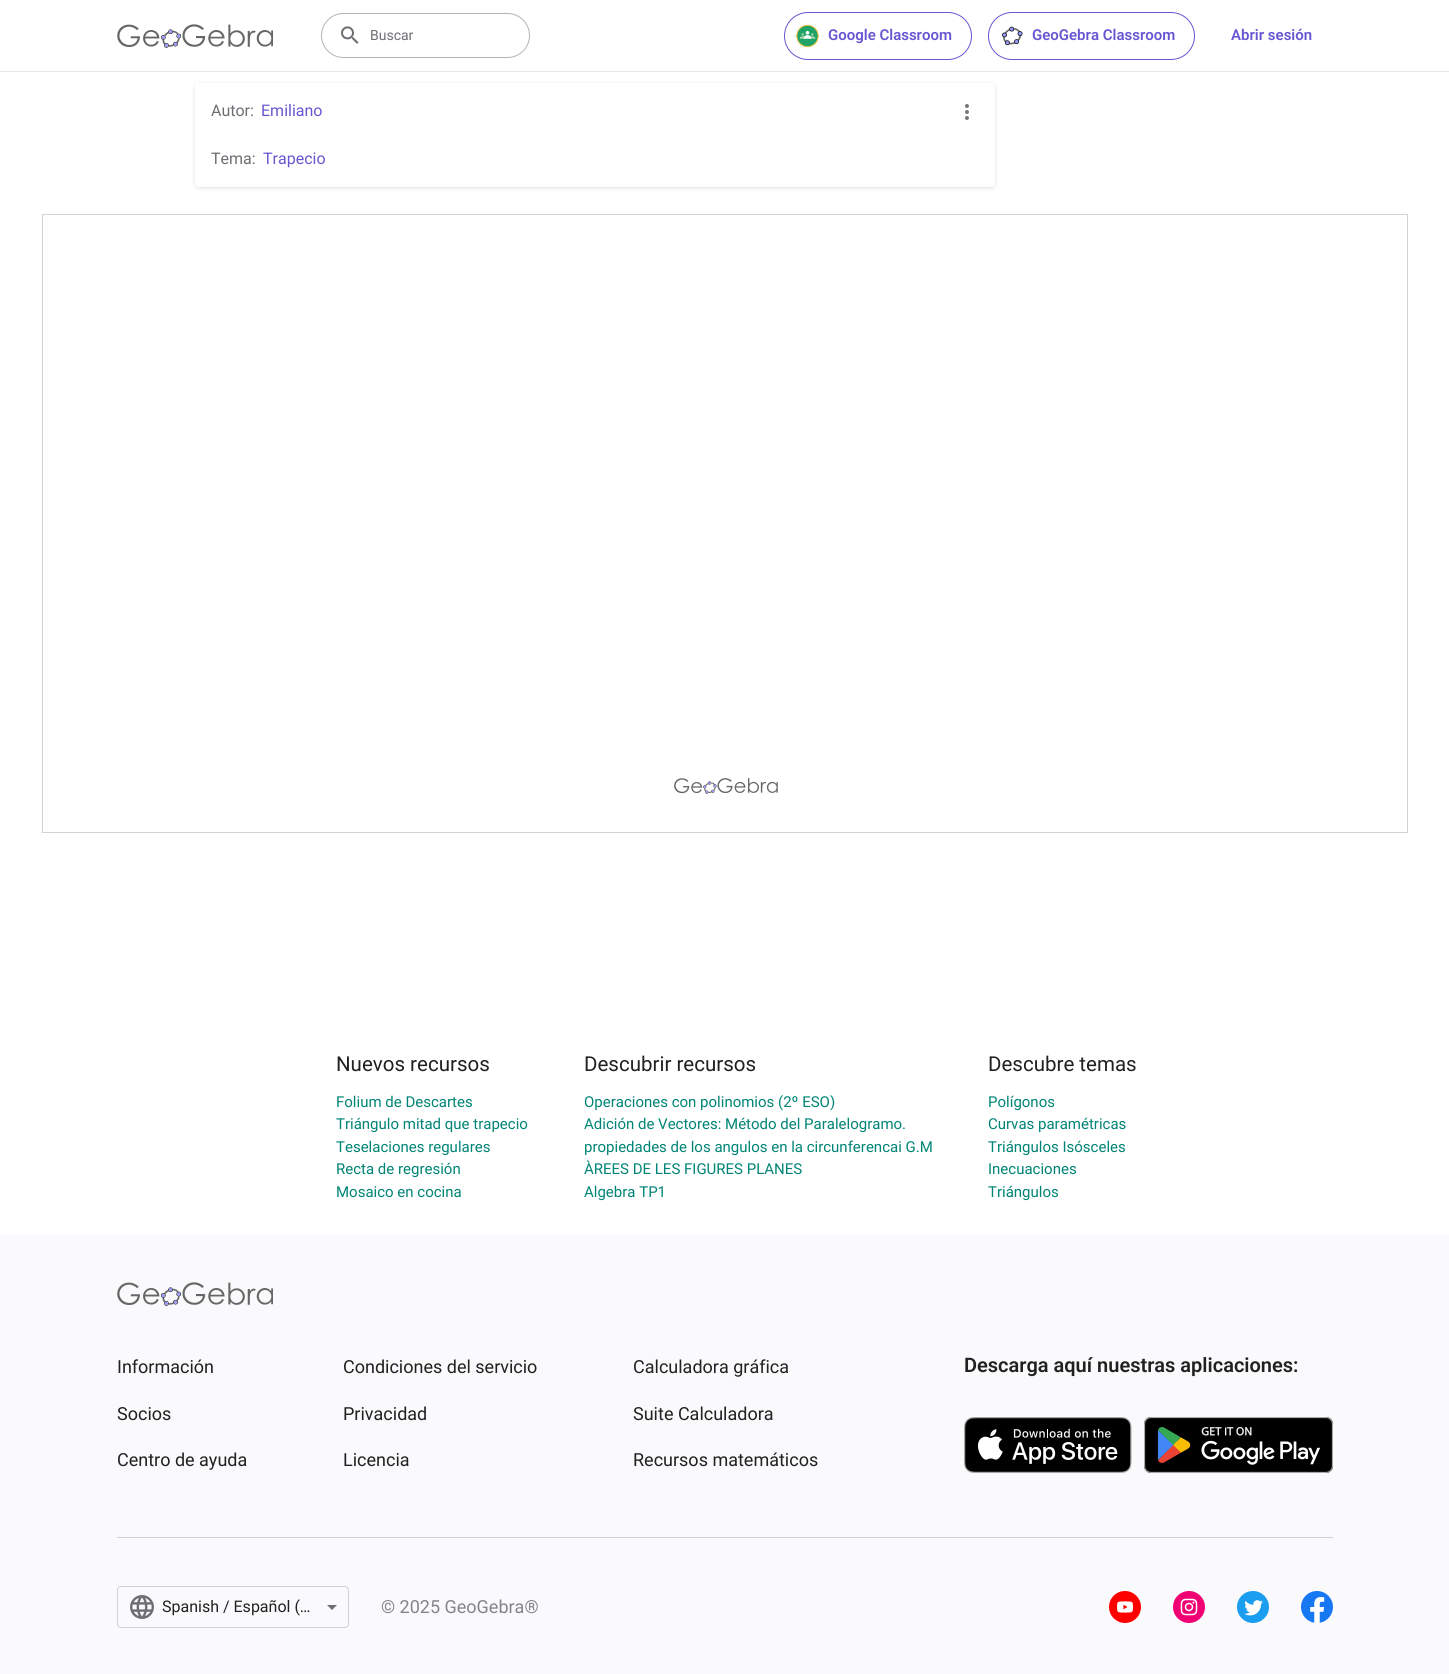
#include <cairo/cairo.h>
#include <math.h>
#include <stddef.h>


static void rounded_rect(cairo_t *cr, double x, double y, double w, double h, double r) {
  cairo_new_sub_path(cr);
  cairo_arc(cr, x + w - r, y + h - r, r, 0, M_PI / 2);
  cairo_arc(cr, x + r, y + h - r, r, M_PI / 2, M_PI);
  cairo_arc(cr, x + r, y + r, r, M_PI, 1.5 * M_PI);
  cairo_arc(cr, x + w - r, y + r, r, 1.5 * M_PI, 2 * M_PI);
  cairo_close_path(cr);
}

static void draw_shadow(cairo_t *cr, double x, double y, double w, double h, double r, double blur, double alpha) {
  cairo_push_group_with_content(cr, CAIRO_CONTENT_ALPHA);
  cairo_set_operator(cr, CAIRO_OPERATOR_SOURCE);
  for (int i = 15; i >= -15 && fmin(w, h) + blur * i / 3 > 0; i -= 2) {
    double e = blur * i / 6;
    cairo_set_source_rgba(cr, 0, 0, 0, alpha * erfc((i - 1) / 8.5) / 2);
    rounded_rect(cr, x - e, y - e, w + 2 * e, h + 2 * e, fmax(0, fmin(r + e + blur * .6, fmin(w, h) / 2 + e)));
    cairo_fill(cr);
  }
  cairo_pattern_t *soft = cairo_pop_group(cr);
  cairo_mask(cr, soft);
  cairo_pattern_destroy(soft);
}

static void draw_image(cairo_t *cr, const char *path, double x, double y, double w, double h) {
  cairo_surface_t *image = cairo_image_surface_create_from_png(path);
  cairo_save(cr);
  cairo_set_source_surface(cr, image, x, y);
  cairo_rectangle(cr, x, y, w, h);
  cairo_fill(cr);
  cairo_restore(cr);
  cairo_surface_destroy(image);
}

static void draw(cairo_t *cr) {
  cairo_set_source_rgb(cr, 1, 1, 1);
  cairo_paint(cr);
  cairo_set_source_rgb(cr, 230 / 255.0, 230 / 255.0, 235 / 255.0);
  cairo_rectangle(cr, 0, 71, 1449, 1);
  cairo_fill(cr);
  draw_image(cr, "images/1.png", 117, 24, 156, 24);
  rounded_rect(cr, 321.5, 13.5, 208, 44, 22);
  cairo_set_source_rgb(cr, 180 / 255.0, 179 / 255.0, 186 / 255.0);
  cairo_set_line_width(cr, 1);
  cairo_stroke(cr);
  draw_image(cr, "images/2.png", 341, 26, 18, 18);
  rounded_rect(cr, 784.5, 12.5, 187, 47, 23.5);
  cairo_set_source_rgb(cr, 101 / 255.0, 87 / 255.0, 210 / 255.0);
  cairo_stroke(cr);
  draw_image(cr, "images/3.png", 796, 24, 23, 24);
  rounded_rect(cr, 988.5, 12.5, 206, 47, 23.5);
  cairo_stroke(cr);
  draw_image(cr, "images/4.png", 1002, 26, 21, 20);
  cairo_set_source_rgb(cr, 28 / 255.0, 28 / 255.0, 31 / 255.0);
  draw_shadow(cr, 195, 84, 800, 104, 4, 2, 0.14);
  cairo_set_source_rgb(cr, 1, 1, 1);
  rounded_rect(cr, 195, 83, 800, 104, 4);
  cairo_fill(cr);
  draw_image(cr, "images/5.png", 965, 104, 4, 16);
  draw_image(cr, "images/6.png", 674, 778, 104, 16);
  cairo_rectangle(cr, 42.5, 214.5, 1365, 618);
  cairo_set_source_rgb(cr, 211 / 255.0, 211 / 255.0, 211 / 255.0);
  cairo_stroke(cr);
  cairo_set_source_rgb(cr, 250 / 255.0, 250 / 255.0, 252 / 255.0);
  cairo_rectangle(cr, 0, 1234, 1449, 440);
  cairo_fill(cr);
  draw_image(cr, "images/7.png", 117, 1282, 156, 24);
  draw_image(cr, "images/8.png", 964, 1417, 168, 56);
  draw_image(cr, "images/9.png", 1144, 1417, 189, 56);
  cairo_set_source_rgb(cr, 209 / 255.0, 208 / 255.0, 214 / 255.0);
  cairo_rectangle(cr, 117, 1537, 1216, 1);
  cairo_fill(cr);
  rounded_rect(cr, 117.5, 1586.5, 231, 41, 3.5);
  cairo_stroke(cr);
  draw_image(cr, "images/10.png", 130, 1595, 24, 24);
  cairo_set_source_rgb(cr, 110 / 255.0, 109 / 255.0, 115 / 255.0);
  cairo_new_path(cr);
  cairo_move_to(cr, 327, 1605);
  cairo_line_to(cr, 332, 1610);
  cairo_line_to(cr, 337, 1605);
  cairo_close_path(cr);
  cairo_fill(cr);
  draw_image(cr, "images/11.png", 1109, 1591, 32, 32);
  draw_image(cr, "images/12.png", 1173, 1591, 32, 32);
  draw_image(cr, "images/13.png", 1237, 1591, 32, 32);
  draw_image(cr, "images/14.png", 1301, 1591, 32, 32);
  cairo_select_font_face(cr, "Roboto", CAIRO_FONT_SLANT_NORMAL, CAIRO_FONT_WEIGHT_NORMAL);
  cairo_set_font_size(cr, 14);
  cairo_move_to(cr, 370, 40);
  cairo_show_text(cr, "Buscar");
  cairo_select_font_face(cr, "Roboto SemiBold", CAIRO_FONT_SLANT_NORMAL, CAIRO_FONT_WEIGHT_NORMAL);
  cairo_set_font_size(cr, 15);
  cairo_set_source_rgb(cr, 101 / 255.0, 87 / 255.0, 210 / 255.0);
  cairo_move_to(cr, 828, 40);
  cairo_show_text(cr, "Google Classroom");
  cairo_move_to(cr, 1032, 40);
  cairo_show_text(cr, "GeoGebra Classroom");
  cairo_move_to(cr, 1231, 40);
  cairo_show_text(cr, "Abrir sesión");
  cairo_select_font_face(cr, "Roboto", CAIRO_FONT_SLANT_NORMAL, CAIRO_FONT_WEIGHT_NORMAL);
  cairo_set_font_size(cr, 16);
  cairo_set_source_rgb(cr, 110 / 255.0, 109 / 255.0, 115 / 255.0);
  cairo_move_to(cr, 211, 116);
  cairo_show_text(cr, "Autor:");
  cairo_set_source_rgb(cr, 101 / 255.0, 87 / 255.0, 210 / 255.0);
  cairo_move_to(cr, 261, 116);
  cairo_show_text(cr, "Emiliano");
  cairo_set_source_rgb(cr, 110 / 255.0, 109 / 255.0, 115 / 255.0);
  cairo_move_to(cr, 211, 164);
  cairo_show_text(cr, "Tema:");
  cairo_set_source_rgb(cr, 101 / 255.0, 87 / 255.0, 210 / 255.0);
  cairo_move_to(cr, 263, 164);
  cairo_show_text(cr, "Trapecio");
  cairo_set_font_size(cr, 20.5);
  cairo_set_source_rgb(cr, 33 / 255.0, 33 / 255.0, 33 / 255.0);
  cairo_move_to(cr, 336, 1071);
  cairo_show_text(cr, "Nuevos recursos");
  cairo_set_font_size(cr, 15);
  cairo_set_source_rgb(cr, 0, 132 / 255.0, 117 / 255.0);
  cairo_move_to(cr, 336, 1107);
  cairo_show_text(cr, "Folium de Descartes");
  cairo_move_to(cr, 336, 1129);
  cairo_show_text(cr, "Triángulo mitad que trapecio");
  cairo_move_to(cr, 336, 1152);
  cairo_show_text(cr, "Teselaciones regulares");
  cairo_move_to(cr, 336, 1174);
  cairo_show_text(cr, "Recta de regresión");
  cairo_move_to(cr, 336, 1197);
  cairo_show_text(cr, "Mosaico en cocina");
  cairo_set_font_size(cr, 20.5);
  cairo_set_source_rgb(cr, 33 / 255.0, 33 / 255.0, 33 / 255.0);
  cairo_move_to(cr, 584, 1071);
  cairo_show_text(cr, "Descubrir recursos");
  cairo_set_font_size(cr, 15);
  cairo_set_source_rgb(cr, 0, 132 / 255.0, 117 / 255.0);
  cairo_move_to(cr, 584, 1107);
  cairo_show_text(cr, "Operaciones con polinomios (2º ESO)");
  cairo_move_to(cr, 584, 1129);
  cairo_show_text(cr, "Adición de Vectores: Método del Paralelogramo.");
  cairo_move_to(cr, 584, 1152);
  cairo_show_text(cr, "propiedades de los angulos en la circunferencai G.M");
  cairo_move_to(cr, 584, 1174);
  cairo_show_text(cr, "ÀREES DE LES FIGURES PLANES");
  cairo_move_to(cr, 584, 1197);
  cairo_show_text(cr, "Algebra TP1");
  cairo_set_font_size(cr, 20.5);
  cairo_set_source_rgb(cr, 33 / 255.0, 33 / 255.0, 33 / 255.0);
  cairo_move_to(cr, 988, 1071);
  cairo_show_text(cr, "Descubre temas");
  cairo_set_font_size(cr, 15);
  cairo_set_source_rgb(cr, 0, 132 / 255.0, 117 / 255.0);
  cairo_move_to(cr, 988, 1107);
  cairo_show_text(cr, "Polígonos");
  cairo_move_to(cr, 988, 1129);
  cairo_show_text(cr, "Curvas paramétricas");
  cairo_move_to(cr, 988, 1152);
  cairo_show_text(cr, "Triángulos Isósceles");
  cairo_move_to(cr, 988, 1174);
  cairo_show_text(cr, "Inecuaciones");
  cairo_move_to(cr, 988, 1197);
  cairo_show_text(cr, "Triángulos");
  cairo_set_font_size(cr, 18);
  cairo_set_source_rgb(cr, 33 / 255.0, 33 / 255.0, 33 / 255.0);
  cairo_move_to(cr, 117, 1373);
  cairo_show_text(cr, "Información");
  cairo_move_to(cr, 117, 1420);
  cairo_show_text(cr, "Socios");
  cairo_move_to(cr, 117, 1466);
  cairo_show_text(cr, "Centro de ayuda");
  cairo_move_to(cr, 343, 1373);
  cairo_show_text(cr, "Condiciones del servicio");
  cairo_move_to(cr, 343, 1420);
  cairo_show_text(cr, "Privacidad");
  cairo_move_to(cr, 343, 1466);
  cairo_show_text(cr, "Licencia");
  cairo_move_to(cr, 633, 1373);
  cairo_show_text(cr, "Calculadora gráfica");
  cairo_move_to(cr, 633, 1420);
  cairo_show_text(cr, "Suite Calculadora");
  cairo_move_to(cr, 633, 1466);
  cairo_show_text(cr, "Recursos matemáticos");
  cairo_select_font_face(cr, "Roboto SemiBold", CAIRO_FONT_SLANT_NORMAL, CAIRO_FONT_WEIGHT_NORMAL);
  cairo_set_font_size(cr, 20);
  cairo_move_to(cr, 964, 1372);
  cairo_show_text(cr, "Descarga aquí nuestras aplicaciones:");
  cairo_select_font_face(cr, "Roboto", CAIRO_FONT_SLANT_NORMAL, CAIRO_FONT_WEIGHT_NORMAL);
  cairo_set_font_size(cr, 16);
  cairo_move_to(cr, 162, 1612);
  cairo_show_text(cr, "Spanish / Español (…");
  cairo_set_font_size(cr, 18);
  cairo_set_source_rgb(cr, 133 / 255.0, 132 / 255.0, 138 / 255.0);
  cairo_move_to(cr, 381, 1613);
  cairo_show_text(cr, "© 2025 GeoGebra®");
}

int main(void) {
  cairo_surface_t *surface = cairo_image_surface_create(CAIRO_FORMAT_RGB24, 1449, 1674);
  cairo_t *cr = cairo_create(surface);
  cairo_font_options_t *options = cairo_font_options_create();
  cairo_font_options_set_hint_metrics(options, CAIRO_HINT_METRICS_OFF);
  cairo_font_options_set_hint_style(options, CAIRO_HINT_STYLE_NONE);
  cairo_set_font_options(cr, options);
  cairo_set_miter_limit(cr, 4);
  draw(cr);
  cairo_surface_write_to_png(surface, "out.png");
  cairo_font_options_destroy(options);
  cairo_destroy(cr);
  cairo_surface_destroy(surface);
  return 0;
}
